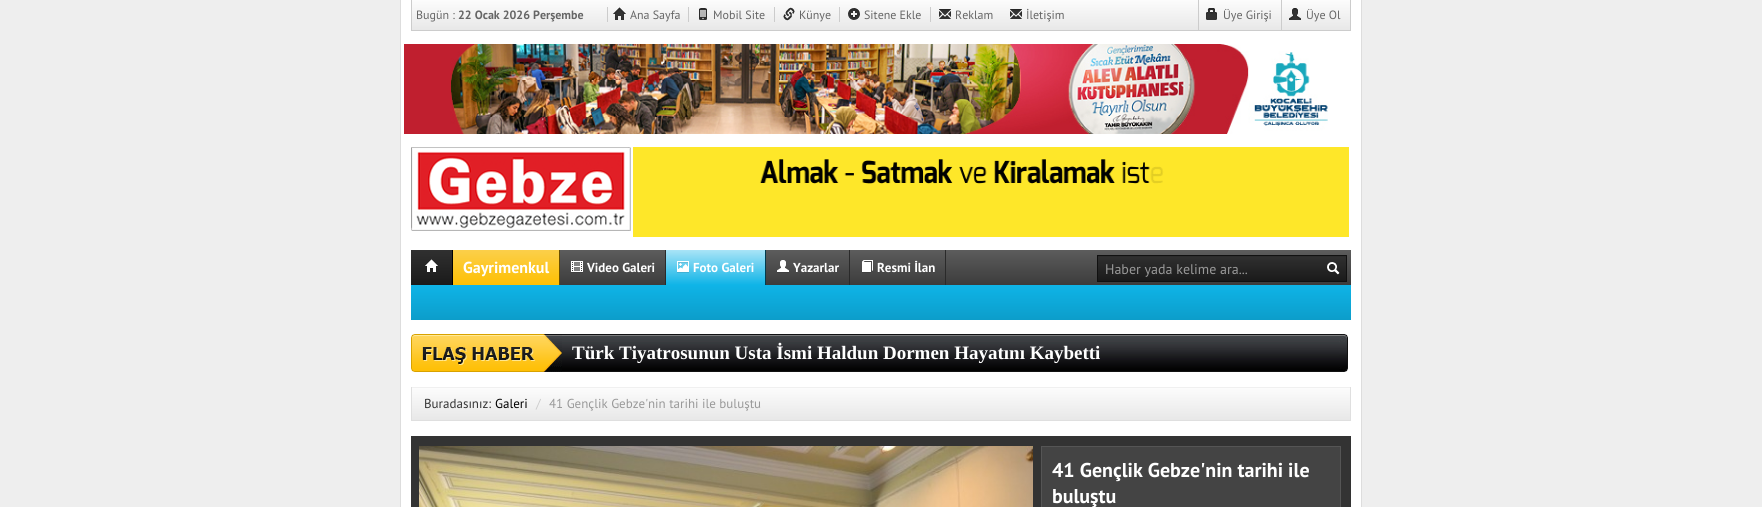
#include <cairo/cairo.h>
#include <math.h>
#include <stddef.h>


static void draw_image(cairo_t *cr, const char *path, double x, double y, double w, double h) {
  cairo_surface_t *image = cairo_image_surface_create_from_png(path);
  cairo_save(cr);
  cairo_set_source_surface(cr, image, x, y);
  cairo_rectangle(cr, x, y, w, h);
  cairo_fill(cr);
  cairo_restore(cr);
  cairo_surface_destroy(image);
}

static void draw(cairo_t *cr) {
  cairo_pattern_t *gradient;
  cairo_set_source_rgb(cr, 238 / 255.0, 238 / 255.0, 238 / 255.0);
  cairo_paint(cr);
  cairo_set_source_rgb(cr, 1, 1, 1);
  cairo_rectangle(cr, 401, 0, 960, 507);
  cairo_fill(cr);
  cairo_set_source_rgb(cr, 221 / 255.0, 221 / 255.0, 221 / 255.0);
  cairo_rectangle(cr, 1361, 0, 1, 507);
  cairo_fill(cr);
  cairo_rectangle(cr, 400, 0, 1, 507);
  cairo_fill(cr);
  cairo_set_source_rgb(cr, 204 / 255.0, 204 / 255.0, 204 / 255.0);
  cairo_rectangle(cr, 411, 30, 940, 1);
  cairo_fill(cr);
  gradient = cairo_pattern_create_linear(881, 0, 881, 30);
  cairo_pattern_add_color_stop_rgba(gradient, 0, 252 / 255.0, 252 / 255.0, 252 / 255.0, 1);
  cairo_pattern_add_color_stop_rgba(gradient, 0.99, 232 / 255.0, 232 / 255.0, 232 / 255.0, 1);
  cairo_set_source(cr, gradient);
  cairo_pattern_destroy(gradient);
  cairo_rectangle(cr, 412, 0, 938, 30);
  cairo_fill(cr);
  cairo_set_source_rgb(cr, 204 / 255.0, 204 / 255.0, 204 / 255.0);
  cairo_rectangle(cr, 1350, 0, 1, 30);
  cairo_fill(cr);
  cairo_rectangle(cr, 411, 0, 1, 30);
  cairo_fill(cr);
  cairo_rectangle(cr, 607, 7, 1, 15);
  cairo_fill(cr);
  cairo_rectangle(cr, 688, 7, 1, 15);
  cairo_fill(cr);
  draw_image(cr, "images/1.png", 613, 7, 13, 13);
  cairo_rectangle(cr, 774, 7, 1, 15);
  cairo_fill(cr);
  draw_image(cr, "images/2.png", 699, 8, 8, 12);
  cairo_rectangle(cr, 839, 7, 1, 15);
  cairo_fill(cr);
  draw_image(cr, "images/3.png", 783, 7, 12, 14);
  cairo_rectangle(cr, 930, 7, 1, 15);
  cairo_fill(cr);
  draw_image(cr, "images/4.png", 848, 8, 12, 12);
  draw_image(cr, "images/5.png", 939, 9, 12, 10);
  draw_image(cr, "images/5.png", 1010, 9, 12, 10);
  cairo_rectangle(cr, 1198, 0, 1, 30);
  cairo_fill(cr);
  draw_image(cr, "images/6.png", 1206, 8, 11, 12);
  cairo_rectangle(cr, 1281, 0, 1, 30);
  cairo_fill(cr);
  draw_image(cr, "images/7.png", 1289, 8, 12, 12);
  draw_image(cr, "images/8.png", 404, 44, 924, 90);
  draw_image(cr, "images/9.png", 411, 147, 220, 84);
  draw_image(cr, "images/10.png", 633, 147, 716, 90);
  gradient = cairo_pattern_create_linear(881, 250, 881, 285);
  cairo_pattern_add_color_stop_rgba(gradient, 0, 92 / 255.0, 92 / 255.0, 92 / 255.0, 1);
  cairo_pattern_add_color_stop_rgba(gradient, 1, 60 / 255.0, 60 / 255.0, 60 / 255.0, 1);
  cairo_set_source(cr, gradient);
  cairo_pattern_destroy(gradient);
  cairo_rectangle(cr, 560, 250, 791, 35);
  cairo_fill(cr);
  gradient = cairo_pattern_create_linear(432, 250, 432, 285);
  cairo_pattern_add_color_stop_rgba(gradient, 0, 48 / 255.0, 48 / 255.0, 48 / 255.0, 1);
  cairo_pattern_add_color_stop_rgba(gradient, 1, 26 / 255.0, 26 / 255.0, 26 / 255.0, 1);
  cairo_set_source(cr, gradient);
  cairo_pattern_destroy(gradient);
  cairo_rectangle(cr, 411, 250, 41, 35);
  cairo_fill(cr);
  cairo_set_source_rgb(cr, 0, 0, 0);
  cairo_rectangle(cr, 452, 250, 1, 35);
  cairo_fill(cr);
  draw_image(cr, "images/11.png", 425, 259, 13, 13);
  gradient = cairo_pattern_create_linear(506, 250, 506, 286);
  cairo_pattern_add_color_stop_rgba(gradient, 0.01, 252 / 255.0, 207 / 255.0, 73 / 255.0, 1);
  cairo_pattern_add_color_stop_rgba(gradient, 1, 254 / 255.0, 191 / 255.0, 1 / 255.0, 1);
  cairo_set_source(cr, gradient);
  cairo_pattern_destroy(gradient);
  cairo_rectangle(cr, 453, 250, 106, 35);
  cairo_fill(cr);
  cairo_set_source_rgb(cr, 105 / 255.0, 79 / 255.0, 0);
  cairo_rectangle(cr, 559, 250, 1, 35);
  cairo_fill(cr);
  cairo_set_source_rgb(cr, 42 / 255.0, 42 / 255.0, 42 / 255.0);
  cairo_rectangle(cr, 665, 250, 1, 35);
  cairo_fill(cr);
  draw_image(cr, "images/12.png", 571, 261, 12, 12);
  gradient = cairo_pattern_create_linear(716, 250, 716, 285);
  cairo_pattern_add_color_stop_rgba(gradient, 0, 169 / 255.0, 228 / 255.0, 247 / 255.0, 1);
  cairo_pattern_add_color_stop_rgba(gradient, 1, 15 / 255.0, 180 / 255.0, 231 / 255.0, 1);
  cairo_set_source(cr, gradient);
  cairo_pattern_destroy(gradient);
  cairo_rectangle(cr, 666, 250, 99, 35);
  cairo_fill(cr);
  cairo_set_source_rgb(cr, 0, 60 / 255.0, 78 / 255.0);
  cairo_rectangle(cr, 765, 250, 1, 35);
  cairo_fill(cr);
  draw_image(cr, "images/13.png", 677, 261, 12, 12);
  cairo_set_source_rgb(cr, 42 / 255.0, 42 / 255.0, 42 / 255.0);
  cairo_rectangle(cr, 849, 250, 1, 35);
  cairo_fill(cr);
  draw_image(cr, "images/14.png", 777, 260, 12, 13);
  cairo_rectangle(cr, 945, 250, 1, 35);
  cairo_fill(cr);
  draw_image(cr, "images/15.png", 862, 260, 11, 13);
  gradient = cairo_pattern_create_linear(1222, 256, 1222, 281);
  cairo_pattern_add_color_stop_rgba(gradient, 0, 48 / 255.0, 48 / 255.0, 48 / 255.0, 1);
  cairo_pattern_add_color_stop_rgba(gradient, 1, 26 / 255.0, 26 / 255.0, 26 / 255.0, 1);
  cairo_set_source(cr, gradient);
  cairo_pattern_destroy(gradient);
  cairo_rectangle(cr, 1098, 257, 248, 24);
  cairo_fill(cr);
  cairo_set_source_rgb(cr, 44 / 255.0, 44 / 255.0, 44 / 255.0);
  cairo_rectangle(cr, 1098, 256, 248, 1);
  cairo_fill(cr);
  cairo_rectangle(cr, 1097.5, 255.5, 249, 26);
  cairo_set_source_rgb(cr, 17 / 255.0, 17 / 255.0, 17 / 255.0);
  cairo_set_line_width(cr, 1);
  cairo_stroke(cr);
  draw_image(cr, "images/16.png", 1327, 262, 13, 13);
  gradient = cairo_pattern_create_linear(881, 285, 881, 320);
  cairo_pattern_add_color_stop_rgba(gradient, 0, 15 / 255.0, 180 / 255.0, 231 / 255.0, 1);
  cairo_pattern_add_color_stop_rgba(gradient, 1, 12 / 255.0, 157 / 255.0, 202 / 255.0, 1);
  cairo_set_source(cr, gradient);
  cairo_pattern_destroy(gradient);
  cairo_rectangle(cr, 411, 285, 940, 35);
  cairo_fill(cr);
  draw_image(cr, "images/17.png", 562, 334, 786, 38);
  draw_image(cr, "images/18.png", 411, 334, 151, 38);
  gradient = cairo_pattern_create_linear(881, 388, 881, 420);
  cairo_pattern_add_color_stop_rgba(gradient, 0, 252 / 255.0, 252 / 255.0, 252 / 255.0, 1);
  cairo_pattern_add_color_stop_rgba(gradient, 0.99, 232 / 255.0, 232 / 255.0, 232 / 255.0, 1);
  cairo_set_source(cr, gradient);
  cairo_pattern_destroy(gradient);
  cairo_rectangle(cr, 412, 388, 938, 32);
  cairo_fill(cr);
  cairo_set_source_rgb(cr, 240 / 255.0, 240 / 255.0, 240 / 255.0);
  cairo_rectangle(cr, 411, 387, 940, 1);
  cairo_fill(cr);
  cairo_set_source_rgb(cr, 223 / 255.0, 223 / 255.0, 223 / 255.0);
  cairo_rectangle(cr, 1350, 387, 1, 34);
  cairo_fill(cr);
  cairo_rectangle(cr, 411, 420, 940, 1);
  cairo_fill(cr);
  cairo_rectangle(cr, 411, 387, 1, 34);
  cairo_fill(cr);
  cairo_set_source_rgb(cr, 51 / 255.0, 51 / 255.0, 51 / 255.0);
  cairo_rectangle(cr, 411, 436, 940, 71);
  cairo_fill(cr);
  draw_image(cr, "images/19.png", 419, 446, 614, 61);
  cairo_set_source_rgb(cr, 68 / 255.0, 68 / 255.0, 68 / 255.0);
  cairo_rectangle(cr, 1041.5, 446.5, 299, 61);
  cairo_fill_preserve(cr);
  cairo_set_source_rgb(cr, 85 / 255.0, 85 / 255.0, 85 / 255.0);
  cairo_stroke(cr);
  cairo_select_font_face(cr, "PT Sans", CAIRO_FONT_SLANT_NORMAL, CAIRO_FONT_WEIGHT_NORMAL);
  cairo_set_font_size(cr, 12);
  cairo_set_source_rgb(cr, 102 / 255.0, 102 / 255.0, 102 / 255.0);
  cairo_move_to(cr, 416, 19);
  cairo_show_text(cr, "Bugün :");
  cairo_select_font_face(cr, "PT Sans", CAIRO_FONT_SLANT_NORMAL, CAIRO_FONT_WEIGHT_BOLD);
  cairo_move_to(cr, 458, 19);
  cairo_show_text(cr, "22 Ocak 2026 Perşembe");
  cairo_select_font_face(cr, "PT Sans", CAIRO_FONT_SLANT_NORMAL, CAIRO_FONT_WEIGHT_NORMAL);
  cairo_move_to(cr, 630, 19);
  cairo_show_text(cr, "Ana Sayfa");
  cairo_move_to(cr, 713, 19);
  cairo_show_text(cr, "Mobil Site");
  cairo_move_to(cr, 799, 19);
  cairo_show_text(cr, "Künye");
  cairo_move_to(cr, 864, 19);
  cairo_show_text(cr, "Sitene Ekle");
  cairo_move_to(cr, 955, 19);
  cairo_show_text(cr, "Reklam");
  cairo_move_to(cr, 1026, 19);
  cairo_show_text(cr, "İletişim");
  cairo_move_to(cr, 1223, 19);
  cairo_show_text(cr, "Üye Girişi");
  cairo_move_to(cr, 1306, 19);
  cairo_show_text(cr, "Üye Ol");
  cairo_select_font_face(cr, "PT Sans", CAIRO_FONT_SLANT_NORMAL, CAIRO_FONT_WEIGHT_BOLD);
  cairo_set_font_size(cr, 16);
  cairo_set_source_rgb(cr, 1, 1, 1);
  cairo_move_to(cr, 463, 273);
  cairo_show_text(cr, "Gayrimenkul");
  cairo_set_font_size(cr, 13);
  cairo_move_to(cr, 587, 272);
  cairo_show_text(cr, "Video Galeri");
  cairo_move_to(cr, 693, 272);
  cairo_show_text(cr, "Foto Galeri");
  cairo_move_to(cr, 793, 272);
  cairo_show_text(cr, "Yazarlar");
  cairo_move_to(cr, 877, 272);
  cairo_show_text(cr, "Resmi İlan");
  cairo_select_font_face(cr, "PT Sans", CAIRO_FONT_SLANT_NORMAL, CAIRO_FONT_WEIGHT_NORMAL);
  cairo_set_font_size(cr, 14);
  cairo_set_source_rgb(cr, 153 / 255.0, 153 / 255.0, 153 / 255.0);
  cairo_move_to(cr, 1105, 274);
  cairo_show_text(cr, "Haber yada kelime ara...");
  cairo_select_font_face(cr, "Liberation Serif", CAIRO_FONT_SLANT_NORMAL, CAIRO_FONT_WEIGHT_BOLD);
  cairo_set_font_size(cr, 19);
  cairo_set_source_rgb(cr, 1, 1, 1);
  cairo_move_to(cr, 572, 359);
  cairo_show_text(cr, "Türk Tiyatrosunun Usta İsmi Haldun Dormen Hayatını Kaybetti");
  cairo_select_font_face(cr, "PT Sans", CAIRO_FONT_SLANT_NORMAL, CAIRO_FONT_WEIGHT_NORMAL);
  cairo_set_font_size(cr, 13);
  cairo_set_source_rgb(cr, 51 / 255.0, 51 / 255.0, 51 / 255.0);
  cairo_move_to(cr, 424, 408);
  cairo_show_text(cr, "Buradasınız:");
  cairo_set_source_rgb(cr, 0, 0, 0);
  cairo_move_to(cr, 495, 408);
  cairo_show_text(cr, "Galeri");
  cairo_set_source_rgb(cr, 204 / 255.0, 204 / 255.0, 204 / 255.0);
  cairo_move_to(cr, 536, 408);
  cairo_show_text(cr, "/");
  cairo_set_source_rgb(cr, 153 / 255.0, 153 / 255.0, 153 / 255.0);
  cairo_move_to(cr, 549, 408);
  cairo_show_text(cr, "41 Gençlik Gebze'nin tarihi ile buluştu");
  cairo_select_font_face(cr, "PT Sans", CAIRO_FONT_SLANT_NORMAL, CAIRO_FONT_WEIGHT_BOLD);
  cairo_set_font_size(cr, 20);
  cairo_set_source_rgb(cr, 1, 1, 1);
  cairo_move_to(cr, 1052, 477);
  cairo_show_text(cr, "41 Gençlik Gebze'nin tarihi ile");
  cairo_move_to(cr, 1052, 503);
  cairo_show_text(cr, "buluştu");
}

int main(void) {
  cairo_surface_t *surface = cairo_image_surface_create(CAIRO_FORMAT_RGB24, 1762, 507);
  cairo_t *cr = cairo_create(surface);
  cairo_font_options_t *options = cairo_font_options_create();
  cairo_font_options_set_hint_metrics(options, CAIRO_HINT_METRICS_OFF);
  cairo_font_options_set_hint_style(options, CAIRO_HINT_STYLE_NONE);
  cairo_set_font_options(cr, options);
  cairo_set_miter_limit(cr, 4);
  draw(cr);
  cairo_surface_write_to_png(surface, "out.png");
  cairo_font_options_destroy(options);
  cairo_destroy(cr);
  cairo_surface_destroy(surface);
  return 0;
}
